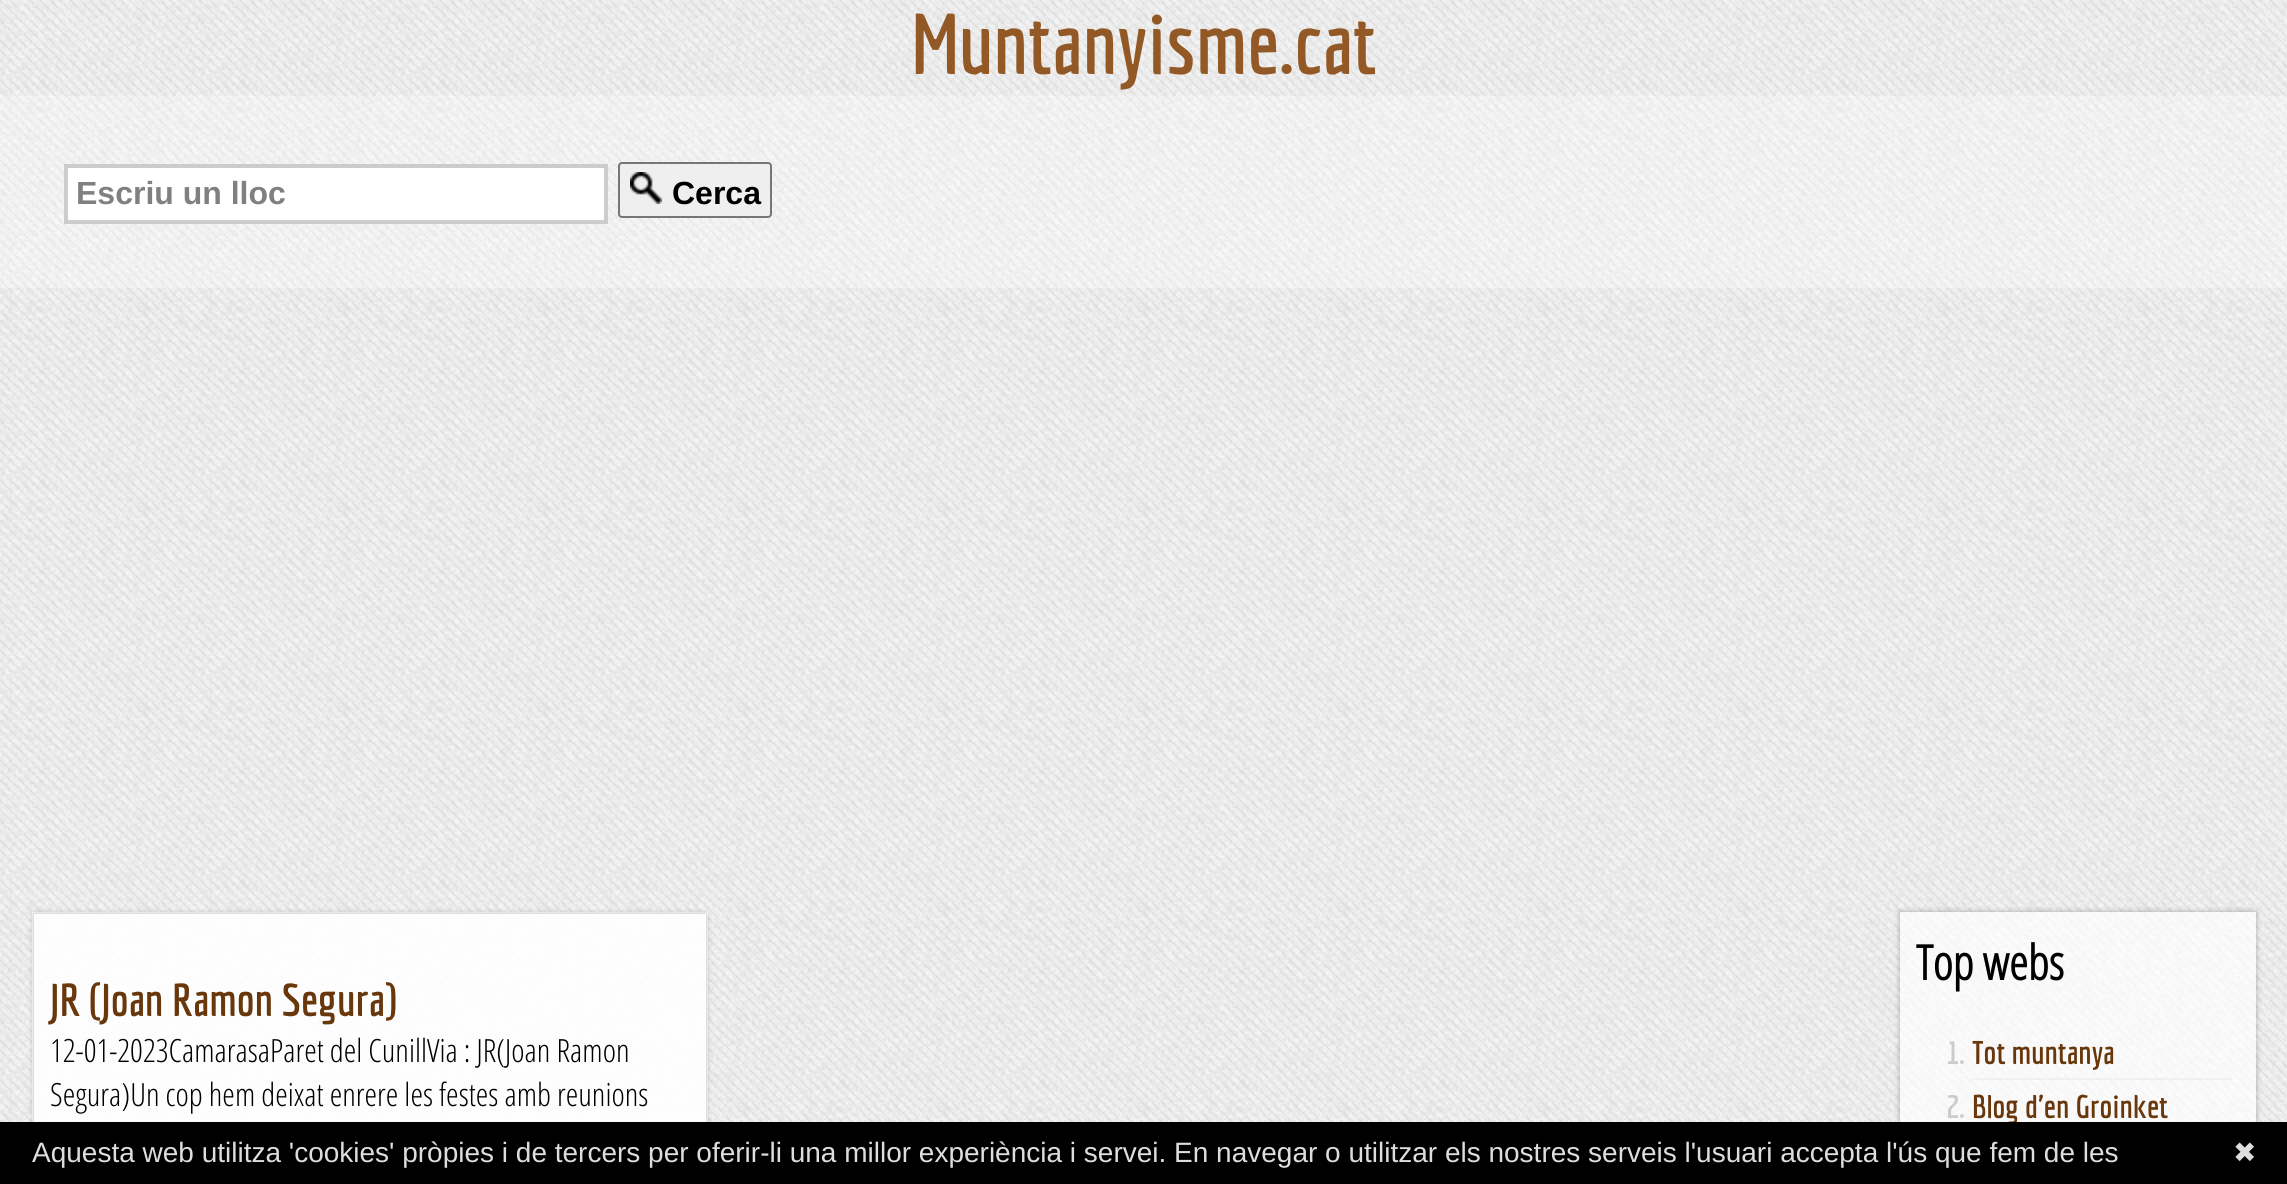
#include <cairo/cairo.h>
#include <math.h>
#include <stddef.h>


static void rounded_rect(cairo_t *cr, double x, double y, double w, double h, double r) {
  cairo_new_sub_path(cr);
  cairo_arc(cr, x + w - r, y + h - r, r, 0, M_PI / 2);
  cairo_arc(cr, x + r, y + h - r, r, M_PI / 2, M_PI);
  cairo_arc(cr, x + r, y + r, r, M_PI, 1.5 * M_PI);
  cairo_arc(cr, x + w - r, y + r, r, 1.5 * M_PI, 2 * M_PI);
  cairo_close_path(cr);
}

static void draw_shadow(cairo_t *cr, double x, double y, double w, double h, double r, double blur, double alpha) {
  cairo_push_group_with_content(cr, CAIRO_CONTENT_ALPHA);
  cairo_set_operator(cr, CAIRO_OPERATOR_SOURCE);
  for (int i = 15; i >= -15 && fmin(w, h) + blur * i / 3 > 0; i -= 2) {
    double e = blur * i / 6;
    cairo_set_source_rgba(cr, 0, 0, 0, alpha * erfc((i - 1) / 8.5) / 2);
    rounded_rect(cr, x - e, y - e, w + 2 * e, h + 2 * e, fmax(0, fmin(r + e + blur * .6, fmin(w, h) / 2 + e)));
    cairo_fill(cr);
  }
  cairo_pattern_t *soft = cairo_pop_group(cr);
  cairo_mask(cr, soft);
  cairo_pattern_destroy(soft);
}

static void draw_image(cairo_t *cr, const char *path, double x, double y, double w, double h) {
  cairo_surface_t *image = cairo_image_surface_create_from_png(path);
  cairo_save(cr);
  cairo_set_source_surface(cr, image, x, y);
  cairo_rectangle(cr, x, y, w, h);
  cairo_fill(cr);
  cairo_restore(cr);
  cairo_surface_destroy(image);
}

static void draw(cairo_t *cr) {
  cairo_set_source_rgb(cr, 1, 1, 1);
  cairo_paint(cr);
  draw_image(cr, "images/1.png", 0, 0, 2287, 1122);
  cairo_set_source_rgba(cr, 1, 1, 1, 0.3);
  cairo_rectangle(cr, 0, 96, 2287, 192);
  cairo_fill(cr);
  cairo_set_source_rgb(cr, 1, 1, 1);
  cairo_rectangle(cr, 66, 166, 540, 56);
  cairo_fill_preserve(cr);
  cairo_set_source_rgb(cr, 204 / 255.0, 204 / 255.0, 204 / 255.0);
  cairo_set_line_width(cr, 4);
  cairo_stroke(cr);
  cairo_set_source_rgb(cr, 239 / 255.0, 239 / 255.0, 239 / 255.0);
  rounded_rect(cr, 619, 163, 152, 54, 3);
  cairo_fill_preserve(cr);
  cairo_set_source_rgb(cr, 118 / 255.0, 118 / 255.0, 118 / 255.0);
  cairo_set_line_width(cr, 2);
  cairo_stroke(cr);
  draw_image(cr, "images/2.png", 630, 172, 32, 32);
  cairo_set_source_rgba(cr, 1, 1, 1, 0.7);
  cairo_rectangle(cr, 34, 914, 672, 208);
  cairo_fill(cr);
  cairo_rectangle(cr, 33, 913, 674, 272);
  cairo_set_source_rgb(cr, 1, 1, 1);
  cairo_stroke(cr);
  cairo_save(cr);
  cairo_set_fill_rule(cr, CAIRO_FILL_RULE_EVEN_ODD);
  cairo_new_path(cr);
  cairo_move_to(cr, 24, 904);
  cairo_line_to(cr, 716, 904);
  cairo_line_to(cr, 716, 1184);
  cairo_line_to(cr, 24, 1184);
  cairo_close_path(cr);
  cairo_move_to(cr, 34, 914);
  cairo_line_to(cr, 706, 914);
  cairo_line_to(cr, 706, 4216);
  cairo_line_to(cr, 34, 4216);
  cairo_close_path(cr);
  cairo_clip(cr);
  cairo_set_source_rgb(cr, 0, 0, 0);
  draw_shadow(cr, 34, 914, 672, 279, 0, 3, 0.3);
  cairo_restore(cr);
  cairo_set_source_rgba(cr, 1, 1, 1, 0.7);
  cairo_rectangle(cr, 34, 914, 672, 208);
  cairo_fill(cr);
  cairo_save(cr);
  cairo_set_fill_rule(cr, CAIRO_FILL_RULE_EVEN_ODD);
  cairo_new_path(cr);
  cairo_move_to(cr, 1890, 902);
  cairo_line_to(cr, 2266, 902);
  cairo_line_to(cr, 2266, 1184);
  cairo_line_to(cr, 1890, 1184);
  cairo_close_path(cr);
  cairo_move_to(cr, 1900, 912);
  cairo_line_to(cr, 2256, 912);
  cairo_line_to(cr, 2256, 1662);
  cairo_line_to(cr, 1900, 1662);
  cairo_close_path(cr);
  cairo_clip(cr);
  cairo_set_source_rgb(cr, 0, 0, 0);
  draw_shadow(cr, 1900, 912, 356, 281, 0, 3, 0.3);
  cairo_restore(cr);
  cairo_rectangle(cr, 1900, 912, 356, 210);
  cairo_fill(cr);
  cairo_set_source_rgb(cr, 240 / 255.0, 240 / 255.0, 240 / 255.0);
  cairo_rectangle(cr, 1972, 1078, 260, 2);
  cairo_fill(cr);
  cairo_select_font_face(cr, "Economica", CAIRO_FONT_SLANT_NORMAL, CAIRO_FONT_WEIGHT_BOLD);
  cairo_set_font_size(cr, 84);
  cairo_set_source_rgb(cr, 146 / 255.0, 88 / 255.0, 37 / 255.0);
  cairo_move_to(cr, 912, 74);
  cairo_show_text(cr, "Muntanyisme.cat");
  cairo_select_font_face(cr, "Liberation Sans", CAIRO_FONT_SLANT_NORMAL, CAIRO_FONT_WEIGHT_BOLD);
  cairo_set_font_size(cr, 32);
  cairo_set_source_rgb(cr, 128 / 255.0, 128 / 255.0, 128 / 255.0);
  cairo_move_to(cr, 76, 204);
  cairo_show_text(cr, "Escriu un lloc");
  cairo_set_source_rgb(cr, 0, 0, 0);
  cairo_move_to(cr, 672, 204);
  cairo_show_text(cr, "Cerca");
  cairo_select_font_face(cr, "Economica", CAIRO_FONT_SLANT_NORMAL, CAIRO_FONT_WEIGHT_BOLD);
  cairo_set_font_size(cr, 44.75);
  cairo_set_source_rgb(cr, 104 / 255.0, 55 / 255.0, 12 / 255.0);
  cairo_move_to(cr, 50, 1016);
  cairo_show_text(cr, "JR (Joan Ramon Segura)");
  cairo_select_font_face(cr, "Open Sans Condensed Light", CAIRO_FONT_SLANT_NORMAL, CAIRO_FONT_WEIGHT_NORMAL);
  cairo_set_font_size(cr, 32);
  cairo_set_source_rgb(cr, 0, 0, 0);
  cairo_move_to(cr, 50, 1062);
  cairo_show_text(cr, "12-01-2023CamarasaParet del CunillVia : JR(Joan Ramon");
  cairo_move_to(cr, 50, 1106);
  cairo_show_text(cr, "Segura)Un cop hem deixat enrere les festes amb reunions");
  cairo_select_font_face(cr, "Open Sans Condensed", CAIRO_FONT_SLANT_NORMAL, CAIRO_FONT_WEIGHT_BOLD);
  cairo_set_font_size(cr, 48);
  cairo_move_to(cr, 1916, 980);
  cairo_show_text(cr, "Top webs");
  cairo_select_font_face(cr, "Economica", CAIRO_FONT_SLANT_NORMAL, CAIRO_FONT_WEIGHT_BOLD);
  cairo_set_font_size(cr, 32);
  cairo_set_source_rgb(cr, 204 / 255.0, 204 / 255.0, 204 / 255.0);
  cairo_move_to(cr, 1946, 1064);
  cairo_show_text(cr, "1.");
  cairo_set_source_rgb(cr, 104 / 255.0, 55 / 255.0, 12 / 255.0);
  cairo_move_to(cr, 1972, 1064);
  cairo_show_text(cr, "Tot muntanya");
  cairo_set_source_rgb(cr, 204 / 255.0, 204 / 255.0, 204 / 255.0);
  cairo_move_to(cr, 1946, 1118);
  cairo_show_text(cr, "2.");
  cairo_set_source_rgb(cr, 104 / 255.0, 55 / 255.0, 12 / 255.0);
  cairo_move_to(cr, 1972, 1118);
  cairo_show_text(cr, "Blog d'en Groinket");
  cairo_set_source_rgb(cr, 0, 0, 0);
  cairo_rectangle(cr, 0, 1122, 2287, 62);
  cairo_fill(cr);
  cairo_select_font_face(cr, "Liberation Sans", CAIRO_FONT_SLANT_NORMAL, CAIRO_FONT_WEIGHT_NORMAL);
  cairo_set_font_size(cr, 28);
  cairo_set_source_rgb(cr, 221 / 255.0, 221 / 255.0, 221 / 255.0);
  cairo_move_to(cr, 32, 1162);
  cairo_show_text(cr, "Aquesta web utilitza 'cookies' pròpies i de tercers per oferir-li una millor experiència i servei. En navegar o utilitzar els nostres serveis l'usuari accepta l'ús que fem de les");
  cairo_select_font_face(cr, "DejaVu Sans", CAIRO_FONT_SLANT_NORMAL, CAIRO_FONT_WEIGHT_NORMAL);
  cairo_move_to(cr, 2233, 1162);
  cairo_show_text(cr, "✖");
}

int main(void) {
  cairo_surface_t *surface = cairo_image_surface_create(CAIRO_FORMAT_RGB24, 2287, 1184);
  cairo_t *cr = cairo_create(surface);
  cairo_font_options_t *options = cairo_font_options_create();
  cairo_font_options_set_hint_metrics(options, CAIRO_HINT_METRICS_OFF);
  cairo_font_options_set_hint_style(options, CAIRO_HINT_STYLE_NONE);
  cairo_set_font_options(cr, options);
  cairo_set_miter_limit(cr, 4);
  draw(cr);
  cairo_surface_write_to_png(surface, "out.png");
  cairo_font_options_destroy(options);
  cairo_destroy(cr);
  cairo_surface_destroy(surface);
  return 0;
}
